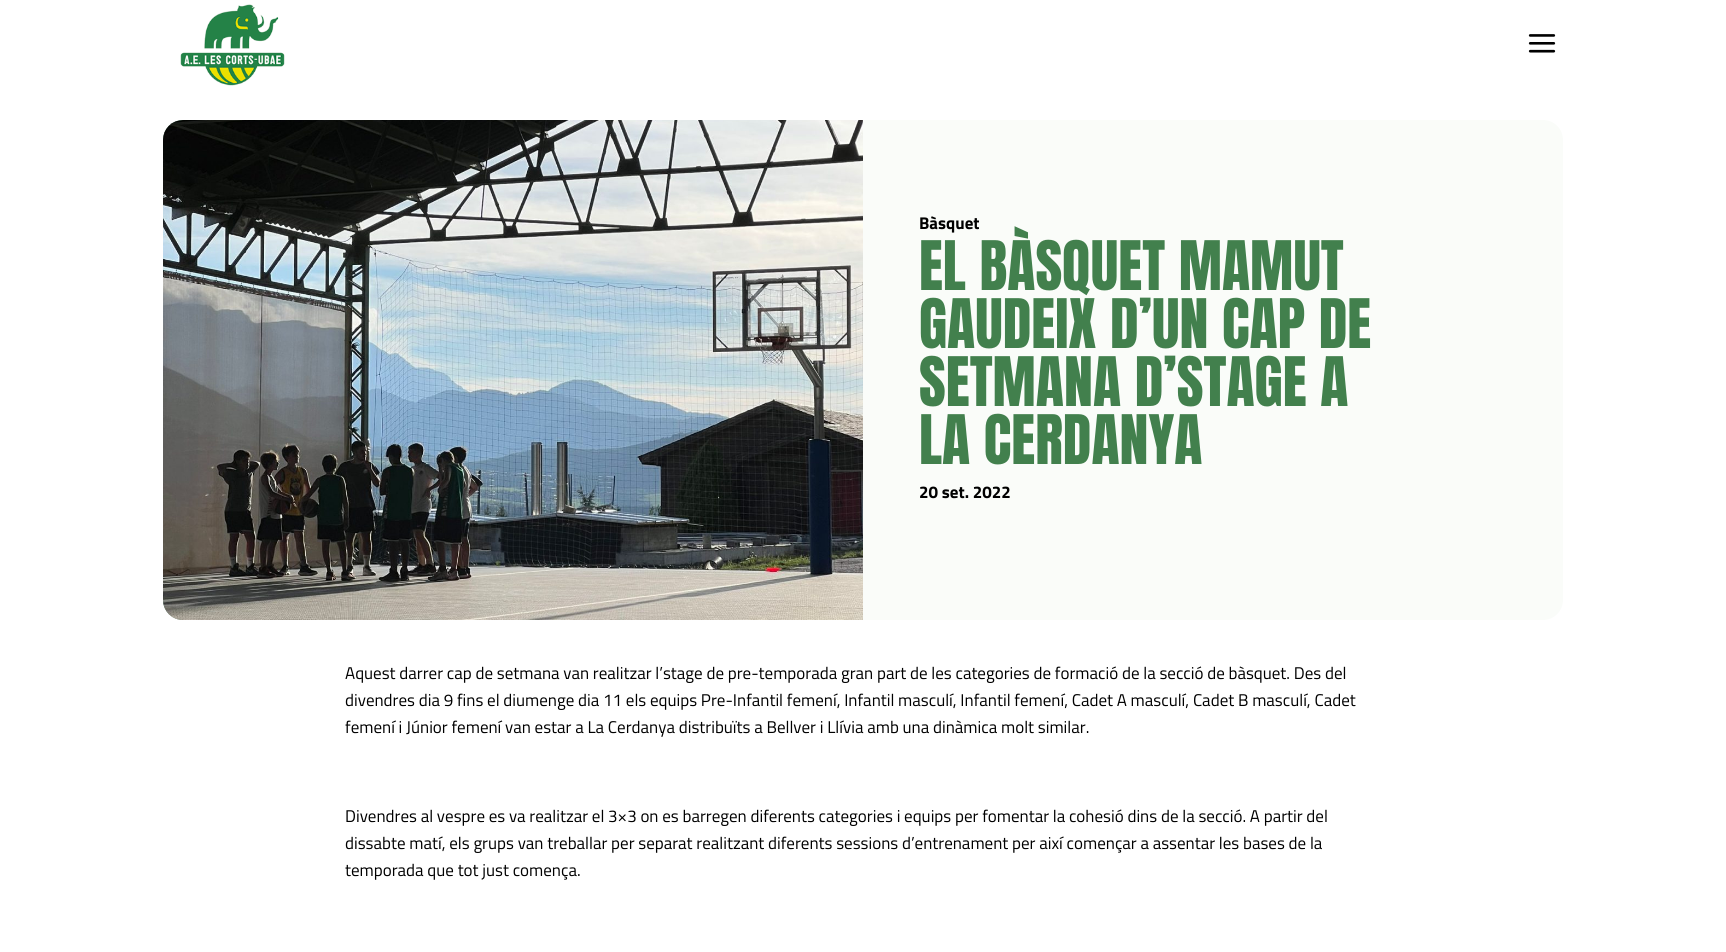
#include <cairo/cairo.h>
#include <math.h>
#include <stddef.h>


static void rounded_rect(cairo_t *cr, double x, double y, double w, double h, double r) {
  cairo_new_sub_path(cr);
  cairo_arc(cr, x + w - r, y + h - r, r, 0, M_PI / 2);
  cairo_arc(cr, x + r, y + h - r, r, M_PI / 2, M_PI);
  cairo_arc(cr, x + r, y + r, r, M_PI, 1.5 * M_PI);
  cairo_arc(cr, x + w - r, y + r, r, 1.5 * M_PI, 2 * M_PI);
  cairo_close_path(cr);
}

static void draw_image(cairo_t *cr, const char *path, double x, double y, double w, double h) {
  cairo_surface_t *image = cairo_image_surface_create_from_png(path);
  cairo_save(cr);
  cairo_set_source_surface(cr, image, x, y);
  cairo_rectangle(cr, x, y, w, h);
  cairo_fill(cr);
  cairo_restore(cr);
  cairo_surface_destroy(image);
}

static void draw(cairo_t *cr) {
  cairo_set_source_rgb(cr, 1, 1, 1);
  cairo_paint(cr);
  draw_image(cr, "images/1.png", 180, 4, 105, 82);
  draw_image(cr, "images/2.png", 1528, 34, 28, 19);
  cairo_set_source_rgb(cr, 250 / 255.0, 252 / 255.0, 249 / 255.0);
  rounded_rect(cr, 163, 120, 1400, 500, 20);
  cairo_fill(cr);
  cairo_set_source_rgb(cr, 115 / 255.0, 155 / 255.0, 132 / 255.0);
  cairo_new_path(cr);
  cairo_move_to(cr, 183, 120);
  cairo_line_to(cr, 863, 120);
  cairo_line_to(cr, 863, 620);
  cairo_line_to(cr, 183, 620);
  cairo_curve_to(cr, 172, 620, 163, 611, 163, 600);
  cairo_line_to(cr, 163, 140);
  cairo_curve_to(cr, 163, 129, 172, 120, 183, 120);
  cairo_close_path(cr);
  cairo_fill(cr);
  draw_image(cr, "images/3.png", 163, 120, 700, 500);
  cairo_select_font_face(cr, "Titillium Web", CAIRO_FONT_SLANT_NORMAL, CAIRO_FONT_WEIGHT_BOLD);
  cairo_set_font_size(cr, 17);
  cairo_set_source_rgb(cr, 0, 0, 0);
  cairo_move_to(cr, 919, 229);
  cairo_show_text(cr, "Bàsquet");
  cairo_select_font_face(cr, "Anton", CAIRO_FONT_SLANT_NORMAL, CAIRO_FONT_WEIGHT_NORMAL);
  cairo_set_font_size(cr, 58);
  cairo_set_source_rgb(cr, 66 / 255.0, 128 / 255.0, 77 / 255.0);
  cairo_move_to(cr, 919, 290);
  cairo_show_text(cr, "EL BÀSQUET MAMUT");
  cairo_move_to(cr, 919, 348);
  cairo_show_text(cr, "GAUDEIX D’UN CAP DE");
  cairo_move_to(cr, 919, 406);
  cairo_show_text(cr, "SETMANA D’STAGE A");
  cairo_move_to(cr, 919, 464);
  cairo_show_text(cr, "LA CERDANYA");
  cairo_select_font_face(cr, "Titillium Web", CAIRO_FONT_SLANT_NORMAL, CAIRO_FONT_WEIGHT_BOLD);
  cairo_set_font_size(cr, 17);
  cairo_set_source_rgb(cr, 0, 0, 0);
  cairo_move_to(cr, 919, 498);
  cairo_show_text(cr, "20 set. 2022");
  cairo_select_font_face(cr, "Titillium Web", CAIRO_FONT_SLANT_NORMAL, CAIRO_FONT_WEIGHT_NORMAL);
  cairo_move_to(cr, 345, 679);
  cairo_show_text(cr, "Aquest darrer cap de setmana van realitzar l’stage de pre-temporada gran part de les categories de formació de la secció de bàsquet. Des del");
  cairo_move_to(cr, 345, 706);
  cairo_show_text(cr, "divendres dia 9 fins el diumenge dia 11 els equips Pre-Infantil femení, Infantil masculí, Infantil femení, Cadet A masculí, Cadet B masculí, Cadet");
  cairo_move_to(cr, 345, 733);
  cairo_show_text(cr, "femení i Júnior femení van estar a La Cerdanya distribuïts a Bellver i Llívia amb una dinàmica molt similar.");
  cairo_move_to(cr, 345, 822);
  cairo_show_text(cr, "Divendres al vespre es va realitzar el 3×3 on es barregen diferents categories i equips per fomentar la cohesió dins de la secció. A partir del");
  cairo_move_to(cr, 345, 849);
  cairo_show_text(cr, "dissabte matí, els grups van treballar per separat realitzant diferents sessions d’entrenament per així començar a assentar les bases de la");
  cairo_move_to(cr, 345, 876);
  cairo_show_text(cr, "temporada que tot just comença.");
}

int main(void) {
  cairo_surface_t *surface = cairo_image_surface_create(CAIRO_FORMAT_RGB24, 1726, 952);
  cairo_t *cr = cairo_create(surface);
  cairo_font_options_t *options = cairo_font_options_create();
  cairo_font_options_set_hint_metrics(options, CAIRO_HINT_METRICS_OFF);
  cairo_font_options_set_hint_style(options, CAIRO_HINT_STYLE_NONE);
  cairo_set_font_options(cr, options);
  cairo_set_miter_limit(cr, 4);
  draw(cr);
  cairo_surface_write_to_png(surface, "out.png");
  cairo_font_options_destroy(options);
  cairo_destroy(cr);
  cairo_surface_destroy(surface);
  return 0;
}
